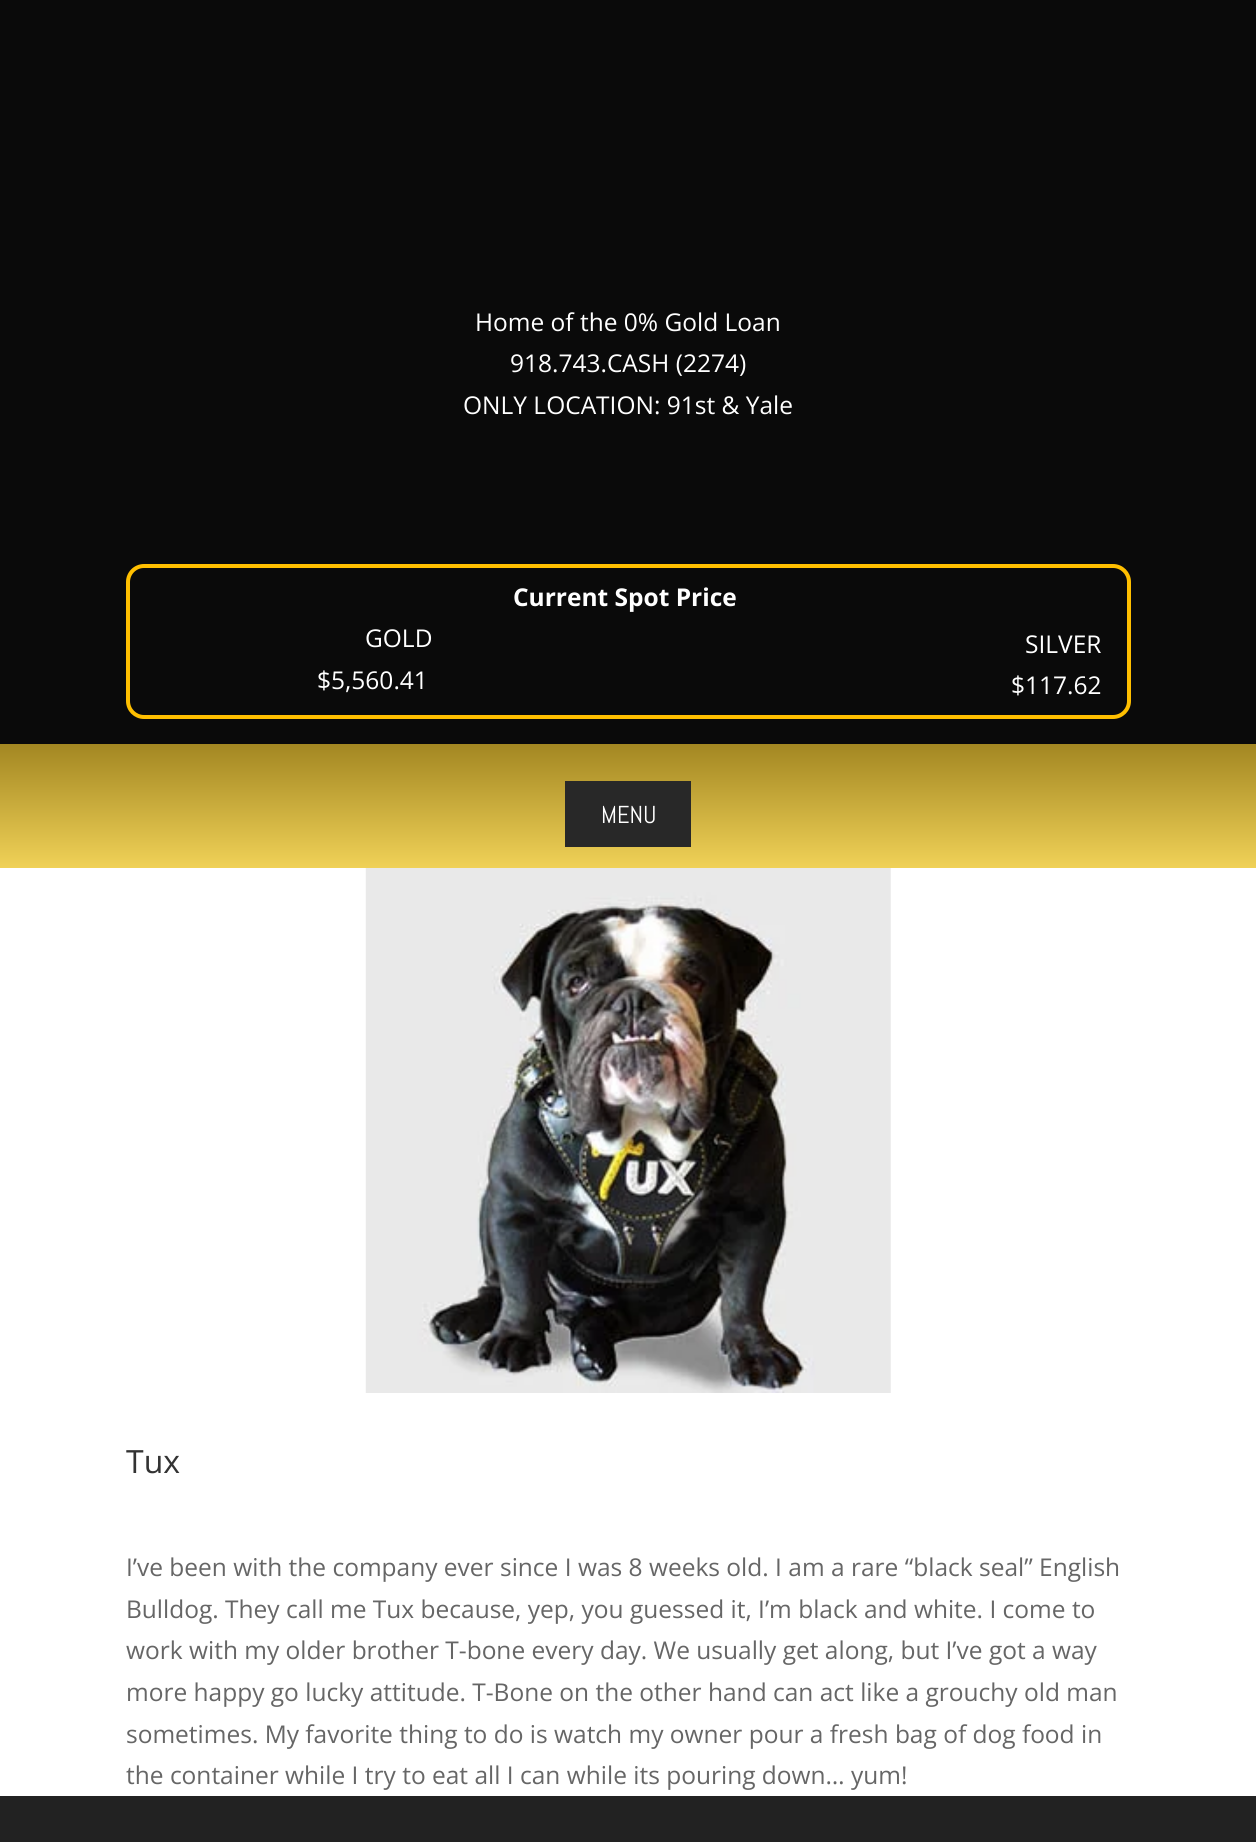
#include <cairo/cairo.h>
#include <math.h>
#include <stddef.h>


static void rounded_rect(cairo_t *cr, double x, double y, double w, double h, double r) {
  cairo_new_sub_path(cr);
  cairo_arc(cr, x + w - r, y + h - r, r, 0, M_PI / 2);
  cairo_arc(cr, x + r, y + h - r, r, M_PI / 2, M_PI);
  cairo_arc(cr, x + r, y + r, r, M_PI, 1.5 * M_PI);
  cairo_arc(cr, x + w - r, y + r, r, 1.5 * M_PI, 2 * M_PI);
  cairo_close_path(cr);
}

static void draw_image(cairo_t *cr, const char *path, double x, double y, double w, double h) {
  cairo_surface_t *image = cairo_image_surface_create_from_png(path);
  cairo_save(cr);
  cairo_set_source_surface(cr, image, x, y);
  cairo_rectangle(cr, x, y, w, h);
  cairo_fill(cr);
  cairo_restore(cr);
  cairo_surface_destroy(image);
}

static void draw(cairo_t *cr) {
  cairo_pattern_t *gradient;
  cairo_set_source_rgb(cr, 10 / 255.0, 10 / 255.0, 10 / 255.0);
  cairo_paint(cr);
  rounded_rect(cr, 128, 566, 1001, 151, 16);
  cairo_set_source_rgb(cr, 1, 191 / 255.0, 0);
  cairo_set_line_width(cr, 4);
  cairo_stroke(cr);
  gradient = cairo_pattern_create_linear(628, 744, 628, 886);
  cairo_pattern_add_color_stop_rgba(gradient, 0, 163 / 255.0, 135 / 255.0, 34 / 255.0, 1);
  cairo_pattern_add_color_stop_rgba(gradient, 1, 251 / 255.0, 220 / 255.0, 95 / 255.0, 1);
  cairo_set_source(cr, gradient);
  cairo_pattern_destroy(gradient);
  cairo_rectangle(cr, 0, 744, 1256, 124);
  cairo_fill(cr);
  cairo_set_source_rgb(cr, 40 / 255.0, 40 / 255.0, 40 / 255.0);
  cairo_rectangle(cr, 565, 781, 126, 66);
  cairo_fill(cr);
  cairo_set_source_rgb(cr, 1, 1, 1);
  cairo_rectangle(cr, 0, 868, 1256, 928);
  cairo_fill(cr);
  draw_image(cr, "images/1.png", 365, 868, 526, 525);
  cairo_set_source_rgb(cr, 34 / 255.0, 34 / 255.0, 34 / 255.0);
  cairo_rectangle(cr, 0, 1796, 1256, 46);
  cairo_fill(cr);
  cairo_select_font_face(cr, "Open Sans", CAIRO_FONT_SLANT_NORMAL, CAIRO_FONT_WEIGHT_NORMAL);
  cairo_set_font_size(cr, 24.5);
  cairo_set_source_rgb(cr, 1, 1, 1);
  cairo_move_to(cr, 475, 331);
  cairo_show_text(cr, "Home of the 0% Gold Loan");
  cairo_move_to(cr, 510, 372);
  cairo_show_text(cr, "918.743.CASH (2274)");
  cairo_move_to(cr, 463, 414);
  cairo_show_text(cr, "ONLY LOCATION: 91st & Yale");
  cairo_select_font_face(cr, "Open Sans", CAIRO_FONT_SLANT_NORMAL, CAIRO_FONT_WEIGHT_BOLD);
  cairo_move_to(cr, 513, 606);
  cairo_show_text(cr, "Current Spot Price");
  cairo_select_font_face(cr, "Open Sans", CAIRO_FONT_SLANT_NORMAL, CAIRO_FONT_WEIGHT_NORMAL);
  cairo_move_to(cr, 365, 647);
  cairo_show_text(cr, "GOLD");
  cairo_move_to(cr, 317, 689);
  cairo_show_text(cr, "$5,560.41");
  cairo_move_to(cr, 1025, 653);
  cairo_show_text(cr, "SILVER");
  cairo_move_to(cr, 1011, 694);
  cairo_show_text(cr, "$117.62");
  cairo_select_font_face(cr, "Abel", CAIRO_FONT_SLANT_NORMAL, CAIRO_FONT_WEIGHT_NORMAL);
  cairo_move_to(cr, 601, 823);
  cairo_show_text(cr, "MENU");
  cairo_select_font_face(cr, "Open Sans", CAIRO_FONT_SLANT_NORMAL, CAIRO_FONT_WEIGHT_NORMAL);
  cairo_set_font_size(cr, 32);
  cairo_set_source_rgb(cr, 51 / 255.0, 51 / 255.0, 51 / 255.0);
  cairo_move_to(cr, 126, 1473);
  cairo_show_text(cr, "Tux");
  cairo_set_font_size(cr, 24.5);
  cairo_set_source_rgb(cr, 102 / 255.0, 102 / 255.0, 102 / 255.0);
  cairo_move_to(cr, 126, 1576);
  cairo_show_text(cr, "I’ve been with the company ever since I was 8 weeks old. I am a rare “black seal” English");
  cairo_move_to(cr, 126, 1618);
  cairo_show_text(cr, "Bulldog. They call me Tux because, yep, you guessed it, I’m black and white. I come to");
  cairo_move_to(cr, 126, 1659);
  cairo_show_text(cr, "work with my older brother T-bone every day. We usually get along, but I’ve got a way");
  cairo_move_to(cr, 126, 1701);
  cairo_show_text(cr, "more happy go lucky attitude. T-Bone on the other hand can act like a grouchy old man");
  cairo_move_to(cr, 126, 1743);
  cairo_show_text(cr, "sometimes. My favorite thing to do is watch my owner pour a fresh bag of dog food in");
  cairo_move_to(cr, 126, 1784);
  cairo_show_text(cr, "the container while I try to eat all I can while its pouring down… yum!");
}

int main(void) {
  cairo_surface_t *surface = cairo_image_surface_create(CAIRO_FORMAT_RGB24, 1256, 1842);
  cairo_t *cr = cairo_create(surface);
  cairo_font_options_t *options = cairo_font_options_create();
  cairo_font_options_set_hint_metrics(options, CAIRO_HINT_METRICS_OFF);
  cairo_font_options_set_hint_style(options, CAIRO_HINT_STYLE_NONE);
  cairo_set_font_options(cr, options);
  cairo_set_miter_limit(cr, 4);
  draw(cr);
  cairo_surface_write_to_png(surface, "out.png");
  cairo_font_options_destroy(options);
  cairo_destroy(cr);
  cairo_surface_destroy(surface);
  return 0;
}
